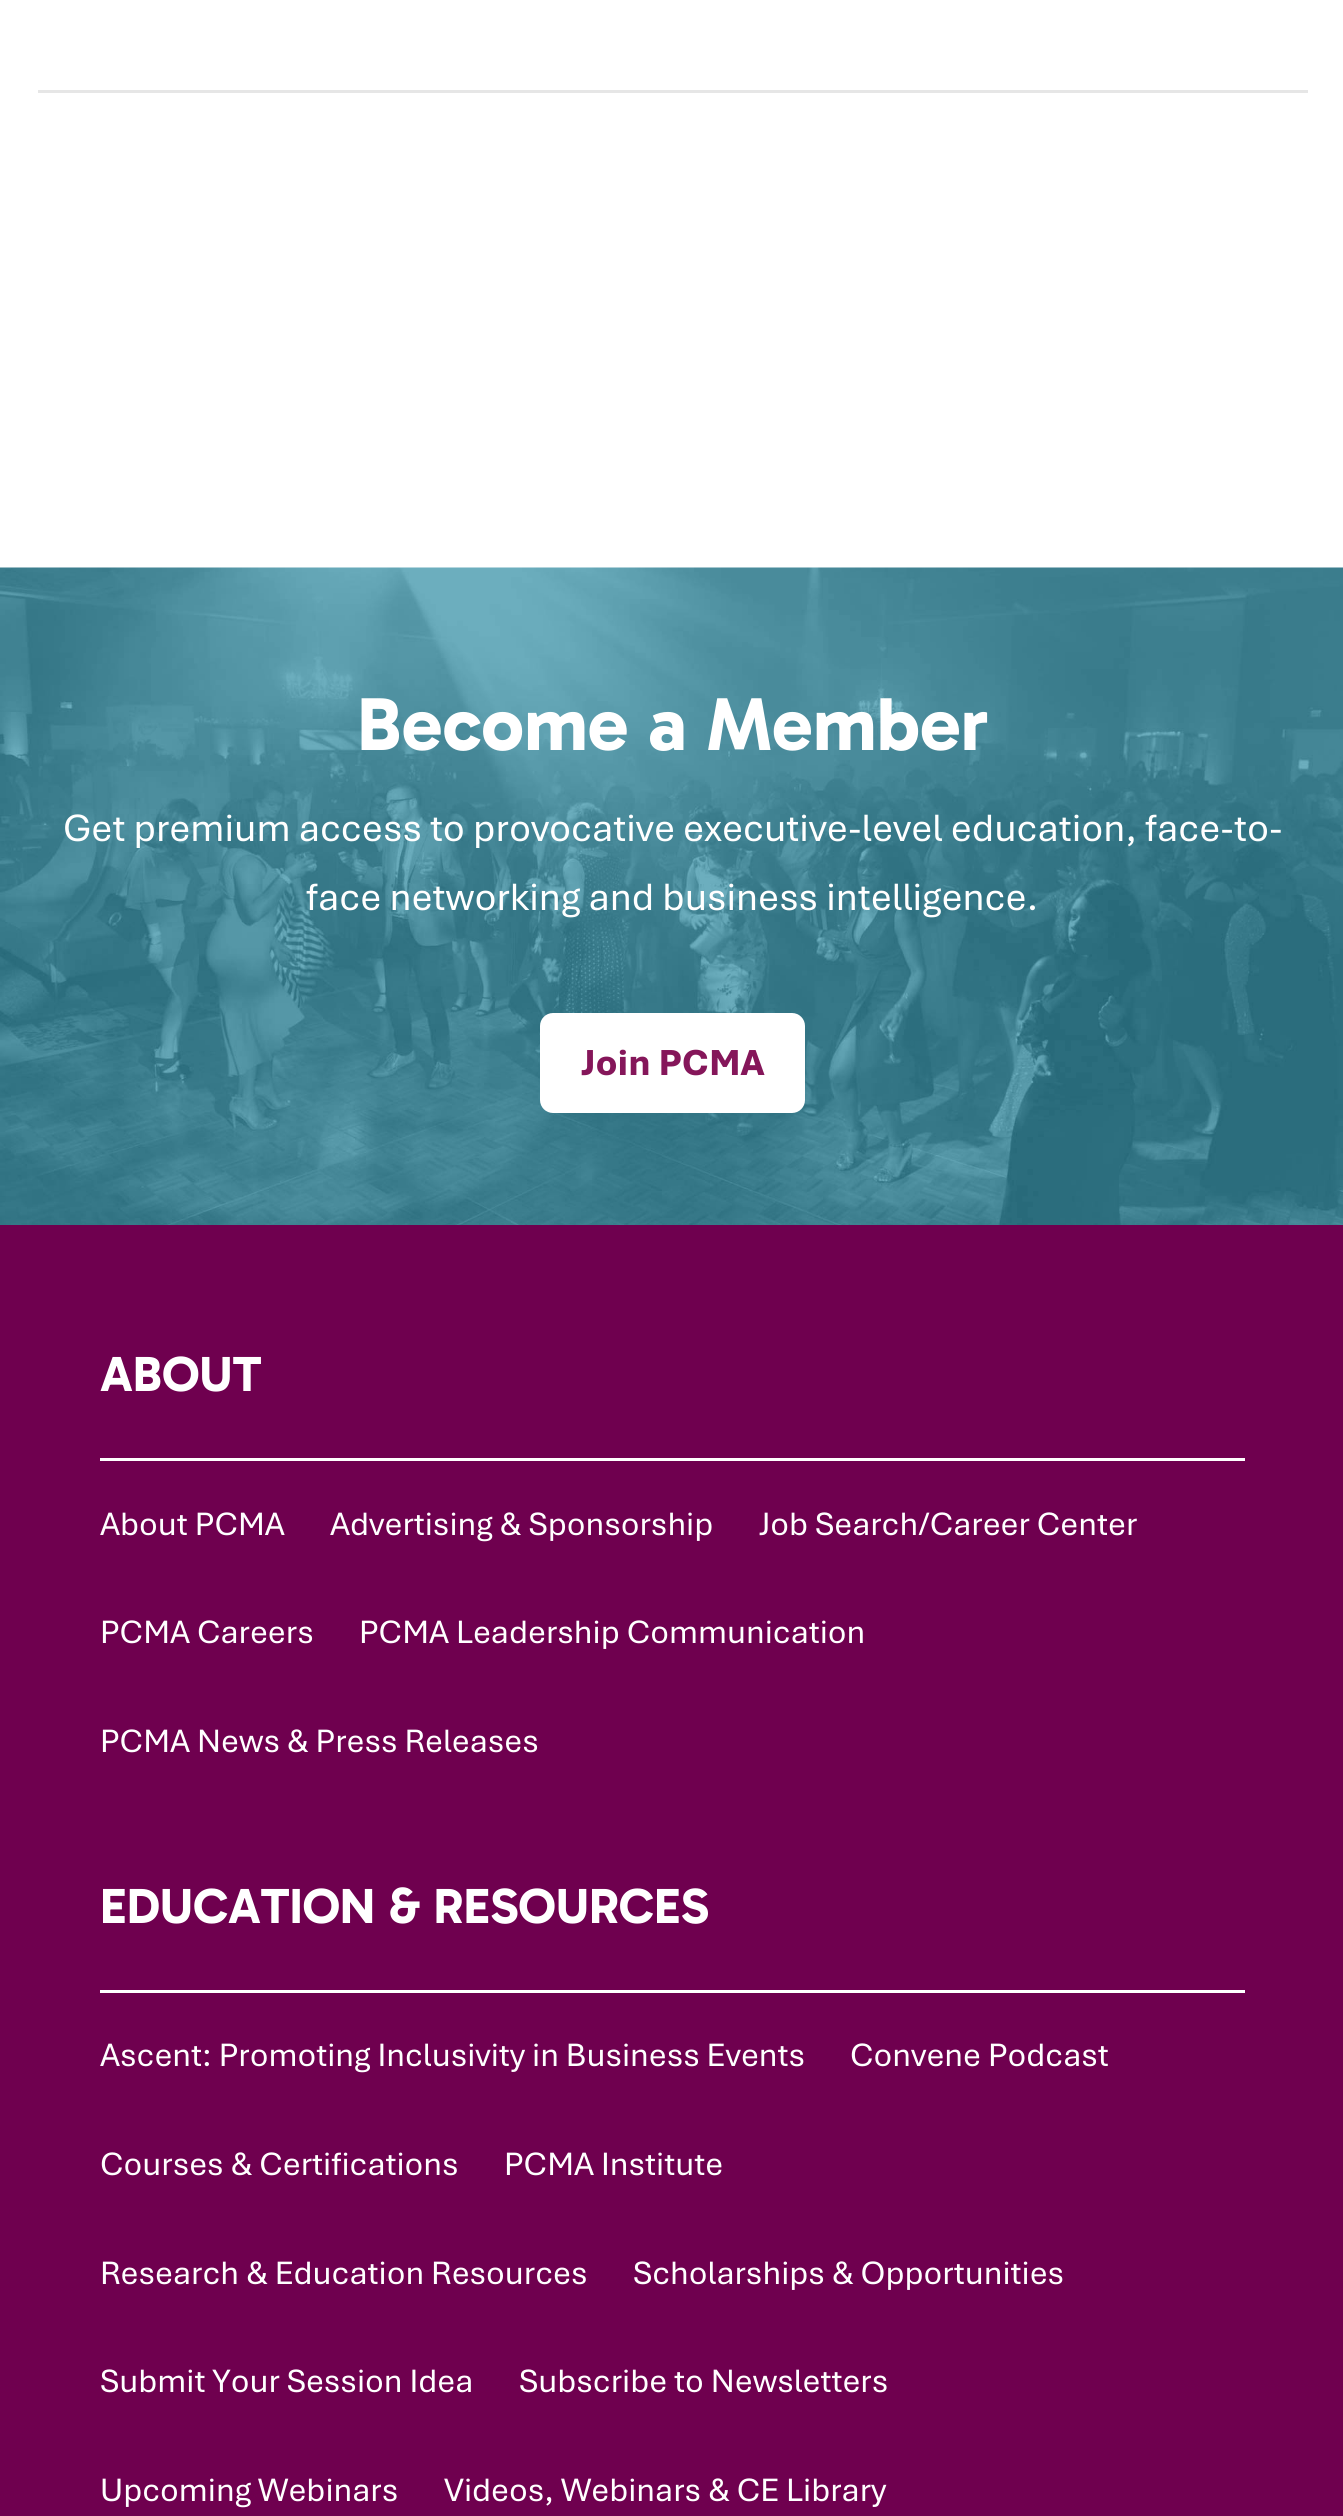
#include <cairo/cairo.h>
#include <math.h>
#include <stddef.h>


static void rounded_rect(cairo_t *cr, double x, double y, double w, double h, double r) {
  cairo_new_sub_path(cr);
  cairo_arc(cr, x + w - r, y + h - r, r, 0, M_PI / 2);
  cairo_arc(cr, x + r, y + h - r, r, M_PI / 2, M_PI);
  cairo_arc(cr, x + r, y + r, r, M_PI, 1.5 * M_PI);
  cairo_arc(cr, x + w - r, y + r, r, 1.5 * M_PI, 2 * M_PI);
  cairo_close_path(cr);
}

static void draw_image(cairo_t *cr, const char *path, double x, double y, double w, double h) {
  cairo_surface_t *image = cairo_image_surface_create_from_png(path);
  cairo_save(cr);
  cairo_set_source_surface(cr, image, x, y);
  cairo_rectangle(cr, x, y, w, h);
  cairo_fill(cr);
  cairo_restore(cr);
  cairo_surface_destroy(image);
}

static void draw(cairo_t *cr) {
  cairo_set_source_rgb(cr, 1, 1, 1);
  cairo_paint(cr);
  cairo_set_source_rgb(cr, 230 / 255.0, 230 / 255.0, 230 / 255.0);
  cairo_rectangle(cr, 38, 90, 1270, 3);
  cairo_fill(cr);
  draw_image(cr, "images/1.png", 0, 567, 1343, 658);
  cairo_set_source_rgb(cr, 1, 1, 1);
  rounded_rect(cr, 540, 1013, 265, 100, 13);
  cairo_fill(cr);
  cairo_set_source_rgb(cr, 111 / 255.0, 0, 79 / 255.0);
  cairo_rectangle(cr, 0, 1225, 1343, 1291);
  cairo_fill(cr);
  cairo_set_source_rgb(cr, 1, 1, 1);
  cairo_rectangle(cr, 100, 1458, 1145, 3);
  cairo_fill(cr);
  cairo_rectangle(cr, 100, 1990, 1145, 3);
  cairo_fill(cr);
  cairo_select_font_face(cr, "Gabarito", CAIRO_FONT_SLANT_NORMAL, CAIRO_FONT_WEIGHT_BOLD);
  cairo_set_font_size(cr, 76);
  cairo_move_to(cr, 357, 750);
  cairo_show_text(cr, "Become a Member");
  cairo_select_font_face(cr, "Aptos", CAIRO_FONT_SLANT_NORMAL, CAIRO_FONT_WEIGHT_NORMAL);
  cairo_set_font_size(cr, 40);
  cairo_move_to(cr, 63, 841);
  cairo_show_text(cr, "Get premium access to provocative executive-level education, face-to-");
  cairo_move_to(cr, 306, 910);
  cairo_show_text(cr, "face networking and business intelligence.");
  cairo_select_font_face(cr, "Aptos ExtraBold", CAIRO_FONT_SLANT_NORMAL, CAIRO_FONT_WEIGHT_NORMAL);
  cairo_set_font_size(cr, 38);
  cairo_set_source_rgb(cr, 133 / 255.0, 22 / 255.0, 90 / 255.0);
  cairo_move_to(cr, 581, 1075);
  cairo_show_text(cr, "Join PCMA");
  cairo_select_font_face(cr, "Gabarito", CAIRO_FONT_SLANT_NORMAL, CAIRO_FONT_WEIGHT_BOLD);
  cairo_set_font_size(cr, 50);
  cairo_set_source_rgb(cr, 1, 1, 1);
  cairo_move_to(cr, 100, 1391);
  cairo_show_text(cr, "ABOUT");
  cairo_select_font_face(cr, "Aptos", CAIRO_FONT_SLANT_NORMAL, CAIRO_FONT_WEIGHT_NORMAL);
  cairo_set_font_size(cr, 34);
  cairo_move_to(cr, 100, 1535);
  cairo_show_text(cr, "About PCMA");
  cairo_move_to(cr, 330, 1535);
  cairo_show_text(cr, "Advertising & Sponsorship");
  cairo_move_to(cr, 759, 1535);
  cairo_show_text(cr, "Job Search/Career Center");
  cairo_move_to(cr, 100, 1643);
  cairo_show_text(cr, "PCMA Careers");
  cairo_move_to(cr, 359, 1643);
  cairo_show_text(cr, "PCMA Leadership Communication");
  cairo_move_to(cr, 100, 1752);
  cairo_show_text(cr, "PCMA News & Press Releases");
  cairo_select_font_face(cr, "Gabarito", CAIRO_FONT_SLANT_NORMAL, CAIRO_FONT_WEIGHT_BOLD);
  cairo_set_font_size(cr, 50);
  cairo_move_to(cr, 100, 1923);
  cairo_show_text(cr, "EDUCATION & RESOURCES");
  cairo_select_font_face(cr, "Aptos", CAIRO_FONT_SLANT_NORMAL, CAIRO_FONT_WEIGHT_NORMAL);
  cairo_set_font_size(cr, 34);
  cairo_move_to(cr, 100, 2066);
  cairo_show_text(cr, "Ascent: Promoting Inclusivity in Business Events");
  cairo_move_to(cr, 850, 2066);
  cairo_show_text(cr, "Convene Podcast");
  cairo_move_to(cr, 100, 2175);
  cairo_show_text(cr, "Courses & Certifications");
  cairo_move_to(cr, 504, 2175);
  cairo_show_text(cr, "PCMA Institute");
  cairo_move_to(cr, 100, 2284);
  cairo_show_text(cr, "Research & Education Resources");
  cairo_move_to(cr, 633, 2284);
  cairo_show_text(cr, "Scholarships & Opportunities");
  cairo_move_to(cr, 100, 2392);
  cairo_show_text(cr, "Submit Your Session Idea");
  cairo_move_to(cr, 519, 2392);
  cairo_show_text(cr, "Subscribe to Newsletters");
  cairo_move_to(cr, 100, 2501);
  cairo_show_text(cr, "Upcoming Webinars");
  cairo_move_to(cr, 444, 2501);
  cairo_show_text(cr, "Videos, Webinars & CE Library");
}

int main(void) {
  cairo_surface_t *surface = cairo_image_surface_create(CAIRO_FORMAT_RGB24, 1343, 2516);
  cairo_t *cr = cairo_create(surface);
  cairo_font_options_t *options = cairo_font_options_create();
  cairo_font_options_set_hint_metrics(options, CAIRO_HINT_METRICS_OFF);
  cairo_font_options_set_hint_style(options, CAIRO_HINT_STYLE_NONE);
  cairo_set_font_options(cr, options);
  cairo_set_miter_limit(cr, 4);
  draw(cr);
  cairo_surface_write_to_png(surface, "out.png");
  cairo_font_options_destroy(options);
  cairo_destroy(cr);
  cairo_surface_destroy(surface);
  return 0;
}
